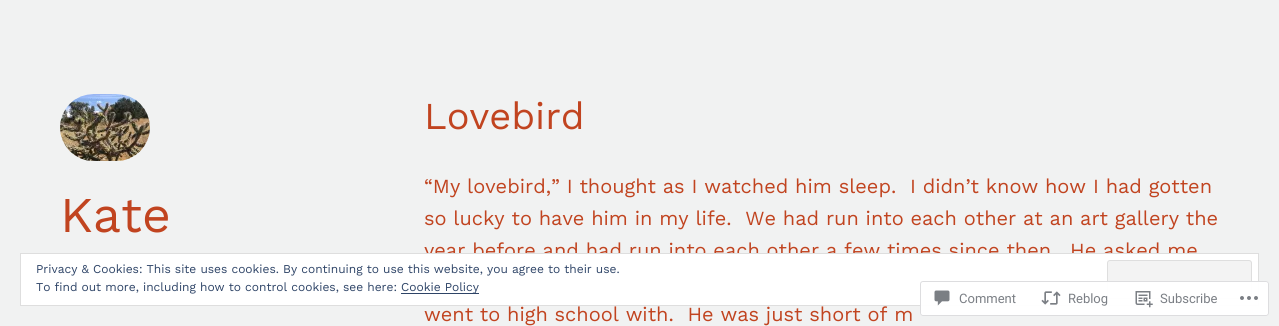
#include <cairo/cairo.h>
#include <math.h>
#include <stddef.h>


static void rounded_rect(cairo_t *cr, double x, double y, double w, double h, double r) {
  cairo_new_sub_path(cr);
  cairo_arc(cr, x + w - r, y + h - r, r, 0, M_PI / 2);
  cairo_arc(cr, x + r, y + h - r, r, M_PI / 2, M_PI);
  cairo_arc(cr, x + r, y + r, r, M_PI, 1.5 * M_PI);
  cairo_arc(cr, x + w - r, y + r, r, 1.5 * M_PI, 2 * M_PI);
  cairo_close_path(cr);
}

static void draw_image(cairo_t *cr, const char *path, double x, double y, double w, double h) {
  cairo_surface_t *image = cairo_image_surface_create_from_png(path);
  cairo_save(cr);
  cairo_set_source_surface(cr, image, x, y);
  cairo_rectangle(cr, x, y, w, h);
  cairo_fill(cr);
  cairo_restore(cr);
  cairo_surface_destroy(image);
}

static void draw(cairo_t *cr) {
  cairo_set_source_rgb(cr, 241 / 255.0, 242 / 255.0, 242 / 255.0);
  cairo_paint(cr);
  draw_image(cr, "images/1.png", 60, 94, 90, 67);
  cairo_select_font_face(cr, "Work Sans", CAIRO_FONT_SLANT_NORMAL, CAIRO_FONT_WEIGHT_NORMAL);
  cairo_set_font_size(cr, 50);
  cairo_set_source_rgb(cr, 193 / 255.0, 68 / 255.0, 32 / 255.0);
  cairo_move_to(cr, 60, 232);
  cairo_show_text(cr, "Kate");
  cairo_set_font_size(cr, 38);
  cairo_move_to(cr, 424, 129);
  cairo_show_text(cr, "Lovebird");
  cairo_set_font_size(cr, 20);
  cairo_move_to(cr, 424, 193);
  cairo_show_text(cr, "“My lovebird,” I thought as I watched him sleep.  I didn’t know how I had gotten");
  cairo_move_to(cr, 424, 225);
  cairo_show_text(cr, "so lucky to have him in my life.  We had run into each other at an art gallery the");
  cairo_move_to(cr, 424, 257);
  cairo_show_text(cr, "year before and had run into each other a few times since then.  He asked me");
  cairo_move_to(cr, 424, 321);
  cairo_show_text(cr, "went to high school with.  He was just short of m");
  cairo_set_source_rgb(cr, 1, 1, 1);
  cairo_rectangle(cr, 20.5, 253.5, 1238, 52);
  cairo_fill_preserve(cr);
  cairo_set_source_rgb(cr, 222 / 255.0, 222 / 255.0, 222 / 255.0);
  cairo_set_line_width(cr, 1);
  cairo_stroke(cr);
  cairo_set_font_size(cr, 12);
  cairo_set_source_rgb(cr, 46 / 255.0, 68 / 255.0, 103 / 255.0);
  cairo_move_to(cr, 36, 273);
  cairo_show_text(cr, "Privacy & Cookies: This site uses cookies. By continuing to use this website, you agree to their use.");
  cairo_set_source_rgb(cr, 243 / 255.0, 243 / 255.0, 243 / 255.0);
  rounded_rect(cr, 1107.5, 260.5, 144, 38, 2.5);
  cairo_fill_preserve(cr);
  cairo_set_source_rgb(cr, 222 / 255.0, 222 / 255.0, 222 / 255.0);
  cairo_stroke(cr);
  cairo_set_source_rgb(cr, 46 / 255.0, 68 / 255.0, 103 / 255.0);
  cairo_move_to(cr, 36, 291);
  cairo_show_text(cr, "To find out more, including how to control cookies, see here:");
  cairo_rectangle(cr, 401, 293, 78, 1);
  cairo_fill(cr);
  cairo_move_to(cr, 401, 291);
  cairo_show_text(cr, "Cookie Policy");
  cairo_set_source_rgba(cr, 1, 1, 1, 0.98);
  rounded_rect(cr, 920, 281, 349, 35, 3);
  cairo_fill(cr);
  rounded_rect(cr, 920.5, 281.5, 348, 34, 2.5);
  cairo_set_source_rgba(cr, 220 / 255.0, 220 / 255.0, 222 / 255.0, 0.98);
  cairo_stroke(cr);
  draw_image(cr, "images/2.png", 934, 290, 16, 16);
  cairo_select_font_face(cr, "Roboto", CAIRO_FONT_SLANT_NORMAL, CAIRO_FONT_WEIGHT_NORMAL);
  cairo_set_font_size(cr, 13);
  cairo_set_source_rgb(cr, 123 / 255.0, 127 / 255.0, 133 / 255.0);
  cairo_move_to(cr, 959, 303);
  cairo_show_text(cr, "Comment");
  draw_image(cr, "images/3.png", 1041, 291, 20, 14);
  cairo_move_to(cr, 1068, 303);
  cairo_show_text(cr, "Reblog");
  draw_image(cr, "images/4.png", 1135, 291, 18, 17);
  cairo_move_to(cr, 1160, 303);
  cairo_show_text(cr, "Subscribe");
  draw_image(cr, "images/5.png", 1240, 296, 18, 4);
}

int main(void) {
  cairo_surface_t *surface = cairo_image_surface_create(CAIRO_FORMAT_RGB24, 1279, 326);
  cairo_t *cr = cairo_create(surface);
  cairo_font_options_t *options = cairo_font_options_create();
  cairo_font_options_set_hint_metrics(options, CAIRO_HINT_METRICS_OFF);
  cairo_font_options_set_hint_style(options, CAIRO_HINT_STYLE_NONE);
  cairo_set_font_options(cr, options);
  cairo_set_miter_limit(cr, 4);
  draw(cr);
  cairo_surface_write_to_png(surface, "out.png");
  cairo_font_options_destroy(options);
  cairo_destroy(cr);
  cairo_surface_destroy(surface);
  return 0;
}
